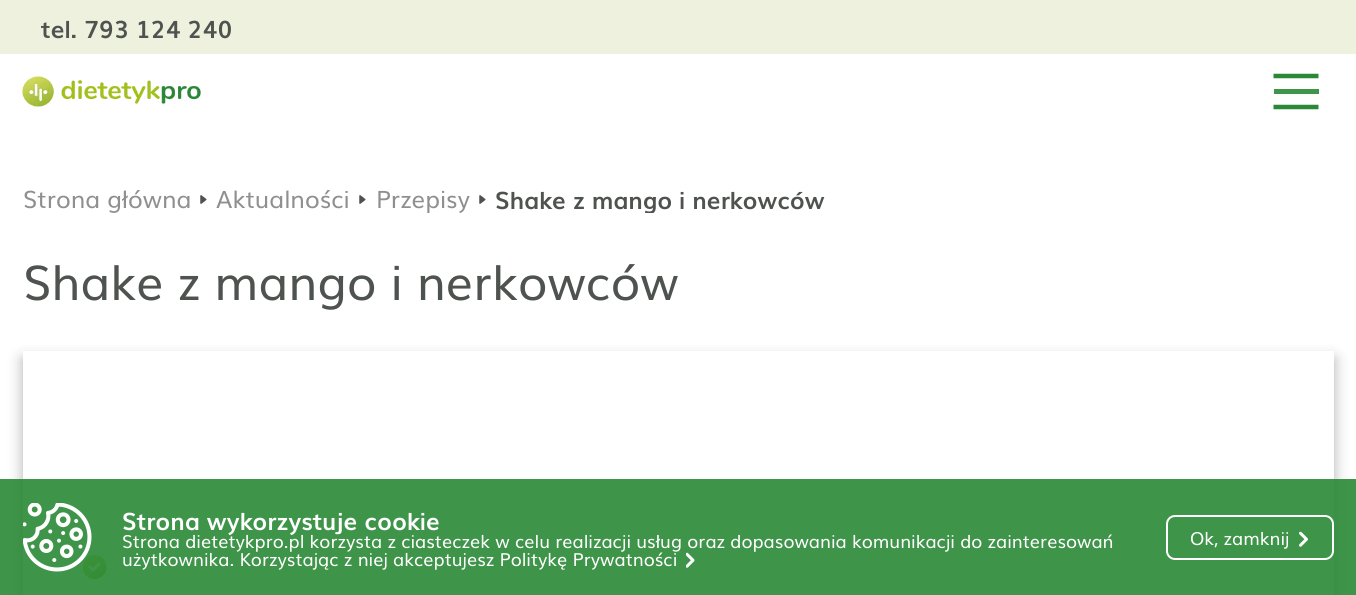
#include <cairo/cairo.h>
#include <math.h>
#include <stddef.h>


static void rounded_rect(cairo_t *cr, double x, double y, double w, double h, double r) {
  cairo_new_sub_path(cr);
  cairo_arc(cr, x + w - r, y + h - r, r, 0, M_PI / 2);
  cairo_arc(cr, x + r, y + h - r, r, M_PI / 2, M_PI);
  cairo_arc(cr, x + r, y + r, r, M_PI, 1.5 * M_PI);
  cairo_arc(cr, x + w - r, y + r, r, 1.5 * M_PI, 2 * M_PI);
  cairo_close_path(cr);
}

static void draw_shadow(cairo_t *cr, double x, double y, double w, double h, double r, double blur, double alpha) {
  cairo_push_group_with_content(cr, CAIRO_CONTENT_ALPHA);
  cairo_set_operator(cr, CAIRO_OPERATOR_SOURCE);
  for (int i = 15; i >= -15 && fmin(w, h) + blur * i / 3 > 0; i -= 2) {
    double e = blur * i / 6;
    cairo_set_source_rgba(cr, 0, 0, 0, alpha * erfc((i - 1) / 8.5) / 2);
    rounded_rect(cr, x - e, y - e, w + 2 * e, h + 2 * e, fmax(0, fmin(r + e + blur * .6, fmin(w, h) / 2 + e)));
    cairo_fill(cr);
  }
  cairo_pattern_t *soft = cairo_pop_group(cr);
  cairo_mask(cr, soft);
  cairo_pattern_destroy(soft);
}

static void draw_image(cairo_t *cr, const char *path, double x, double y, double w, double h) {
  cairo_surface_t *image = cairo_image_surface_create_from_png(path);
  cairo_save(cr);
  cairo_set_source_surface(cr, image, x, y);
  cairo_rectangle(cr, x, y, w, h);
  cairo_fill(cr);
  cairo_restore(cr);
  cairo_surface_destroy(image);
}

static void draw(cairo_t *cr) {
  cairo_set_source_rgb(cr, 1, 1, 1);
  cairo_paint(cr);
  cairo_set_source_rgb(cr, 237 / 255.0, 241 / 255.0, 221 / 255.0);
  cairo_rectangle(cr, 0, 0, 1356, 54);
  cairo_fill(cr);
  draw_image(cr, "images/1.png", 22, 76, 179, 31);
  cairo_new_path(cr);
  cairo_move_to(cr, 1273.5, 76);
  cairo_line_to(cr, 1318.5, 76);
  cairo_set_source_rgb(cr, 42 / 255.0, 137 / 255.0, 54 / 255.0);
  cairo_set_line_width(cr, 4.5);
  cairo_stroke(cr);
  cairo_set_source_rgb(cr, 63 / 255.0, 149 / 255.0, 74 / 255.0);
  cairo_rectangle(cr, 1274, 89, 45, 5);
  cairo_fill(cr);
  cairo_new_path(cr);
  cairo_move_to(cr, 1273.5, 107);
  cairo_line_to(cr, 1318.5, 107);
  cairo_set_source_rgb(cr, 42 / 255.0, 137 / 255.0, 54 / 255.0);
  cairo_stroke(cr);
  draw_image(cr, "images/2.png", 200, 195, 7, 9);
  draw_image(cr, "images/2.png", 359, 195, 7, 9);
  draw_image(cr, "images/2.png", 479, 195, 7, 9);
  cairo_set_source_rgb(cr, 13 / 255.0, 14 / 255.0, 14 / 255.0);
  draw_shadow(cr, 23, 359, 1311, 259, 0, 7.5, 0.33);
  cairo_set_source_rgb(cr, 1, 1, 1);
  cairo_rectangle(cr, 23, 351, 1311, 244);
  cairo_fill(cr);
  draw_image(cr, "images/3.png", 83, 555, 24, 24);
  cairo_set_source_rgba(cr, 42 / 255.0, 137 / 255.0, 54 / 255.0, 0.9);
  cairo_rectangle(cr, 0, 479, 1356, 116);
  cairo_fill(cr);
  draw_image(cr, "images/4.png", 23, 503, 69, 69);
  draw_image(cr, "images/5.png", 686, 552, 9, 16);
  rounded_rect(cr, 1167, 516, 166, 43, 8);
  cairo_set_source_rgb(cr, 1, 1, 1);
  cairo_set_line_width(cr, 2);
  cairo_stroke(cr);
  draw_image(cr, "images/6.png", 1299, 531, 9, 16);
  cairo_select_font_face(cr, "Muli", CAIRO_FONT_SLANT_NORMAL, CAIRO_FONT_WEIGHT_BOLD);
  cairo_set_font_size(cr, 24);
  cairo_set_source_rgb(cr, 78 / 255.0, 83 / 255.0, 79 / 255.0);
  cairo_move_to(cr, 41, 38);
  cairo_show_text(cr, "tel. 793 124 240");
  cairo_select_font_face(cr, "Muli", CAIRO_FONT_SLANT_NORMAL, CAIRO_FONT_WEIGHT_NORMAL);
  cairo_set_source_rgb(cr, 143 / 255.0, 143 / 255.0, 143 / 255.0);
  cairo_move_to(cr, 23, 208);
  cairo_show_text(cr, "Strona główna");
  cairo_move_to(cr, 216, 208);
  cairo_show_text(cr, "Aktualności");
  cairo_move_to(cr, 376, 208);
  cairo_show_text(cr, "Przepisy");
  cairo_save(cr);
  cairo_rectangle(cr, 495, 183, 330, 30);
  cairo_clip(cr);
  cairo_select_font_face(cr, "Muli", CAIRO_FONT_SLANT_NORMAL, CAIRO_FONT_WEIGHT_BOLD);
  cairo_set_source_rgb(cr, 78 / 255.0, 83 / 255.0, 79 / 255.0);
  cairo_move_to(cr, 495, 209);
  cairo_show_text(cr, "Shake z mango");
  cairo_restore(cr);
  cairo_select_font_face(cr, "Muli", CAIRO_FONT_SLANT_NORMAL, CAIRO_FONT_WEIGHT_BOLD);
  cairo_set_source_rgb(cr, 78 / 255.0, 83 / 255.0, 79 / 255.0);
  cairo_move_to(cr, 679, 209);
  cairo_show_text(cr, "i nerkowców");
  cairo_select_font_face(cr, "Muli", CAIRO_FONT_SLANT_NORMAL, CAIRO_FONT_WEIGHT_NORMAL);
  cairo_set_font_size(cr, 48);
  cairo_move_to(cr, 23, 300);
  cairo_show_text(cr, "Shake z mango i nerkowców");
  cairo_select_font_face(cr, "Muli", CAIRO_FONT_SLANT_NORMAL, CAIRO_FONT_WEIGHT_BOLD);
  cairo_set_font_size(cr, 24);
  cairo_set_source_rgb(cr, 1, 1, 1);
  cairo_move_to(cr, 122, 530);
  cairo_show_text(cr, "Strona wykorzystuje cookie");
  cairo_select_font_face(cr, "Muli", CAIRO_FONT_SLANT_NORMAL, CAIRO_FONT_WEIGHT_NORMAL);
  cairo_set_font_size(cr, 18);
  cairo_move_to(cr, 122, 548);
  cairo_show_text(cr, "Strona dietetykpro.pl korzysta z ciasteczek w celu realizacji usług oraz dopasowania komunikacji do zainteresowań");
  cairo_move_to(cr, 122, 566);
  cairo_show_text(cr, "użytkownika. Korzystając z niej akceptujesz Politykę Prywatności");
  cairo_move_to(cr, 1190, 545);
  cairo_show_text(cr, "Ok, zamknij");
}

int main(void) {
  cairo_surface_t *surface = cairo_image_surface_create(CAIRO_FORMAT_RGB24, 1356, 595);
  cairo_t *cr = cairo_create(surface);
  cairo_font_options_t *options = cairo_font_options_create();
  cairo_font_options_set_hint_metrics(options, CAIRO_HINT_METRICS_OFF);
  cairo_font_options_set_hint_style(options, CAIRO_HINT_STYLE_NONE);
  cairo_set_font_options(cr, options);
  cairo_set_miter_limit(cr, 4);
  draw(cr);
  cairo_surface_write_to_png(surface, "out.png");
  cairo_font_options_destroy(options);
  cairo_destroy(cr);
  cairo_surface_destroy(surface);
  return 0;
}
